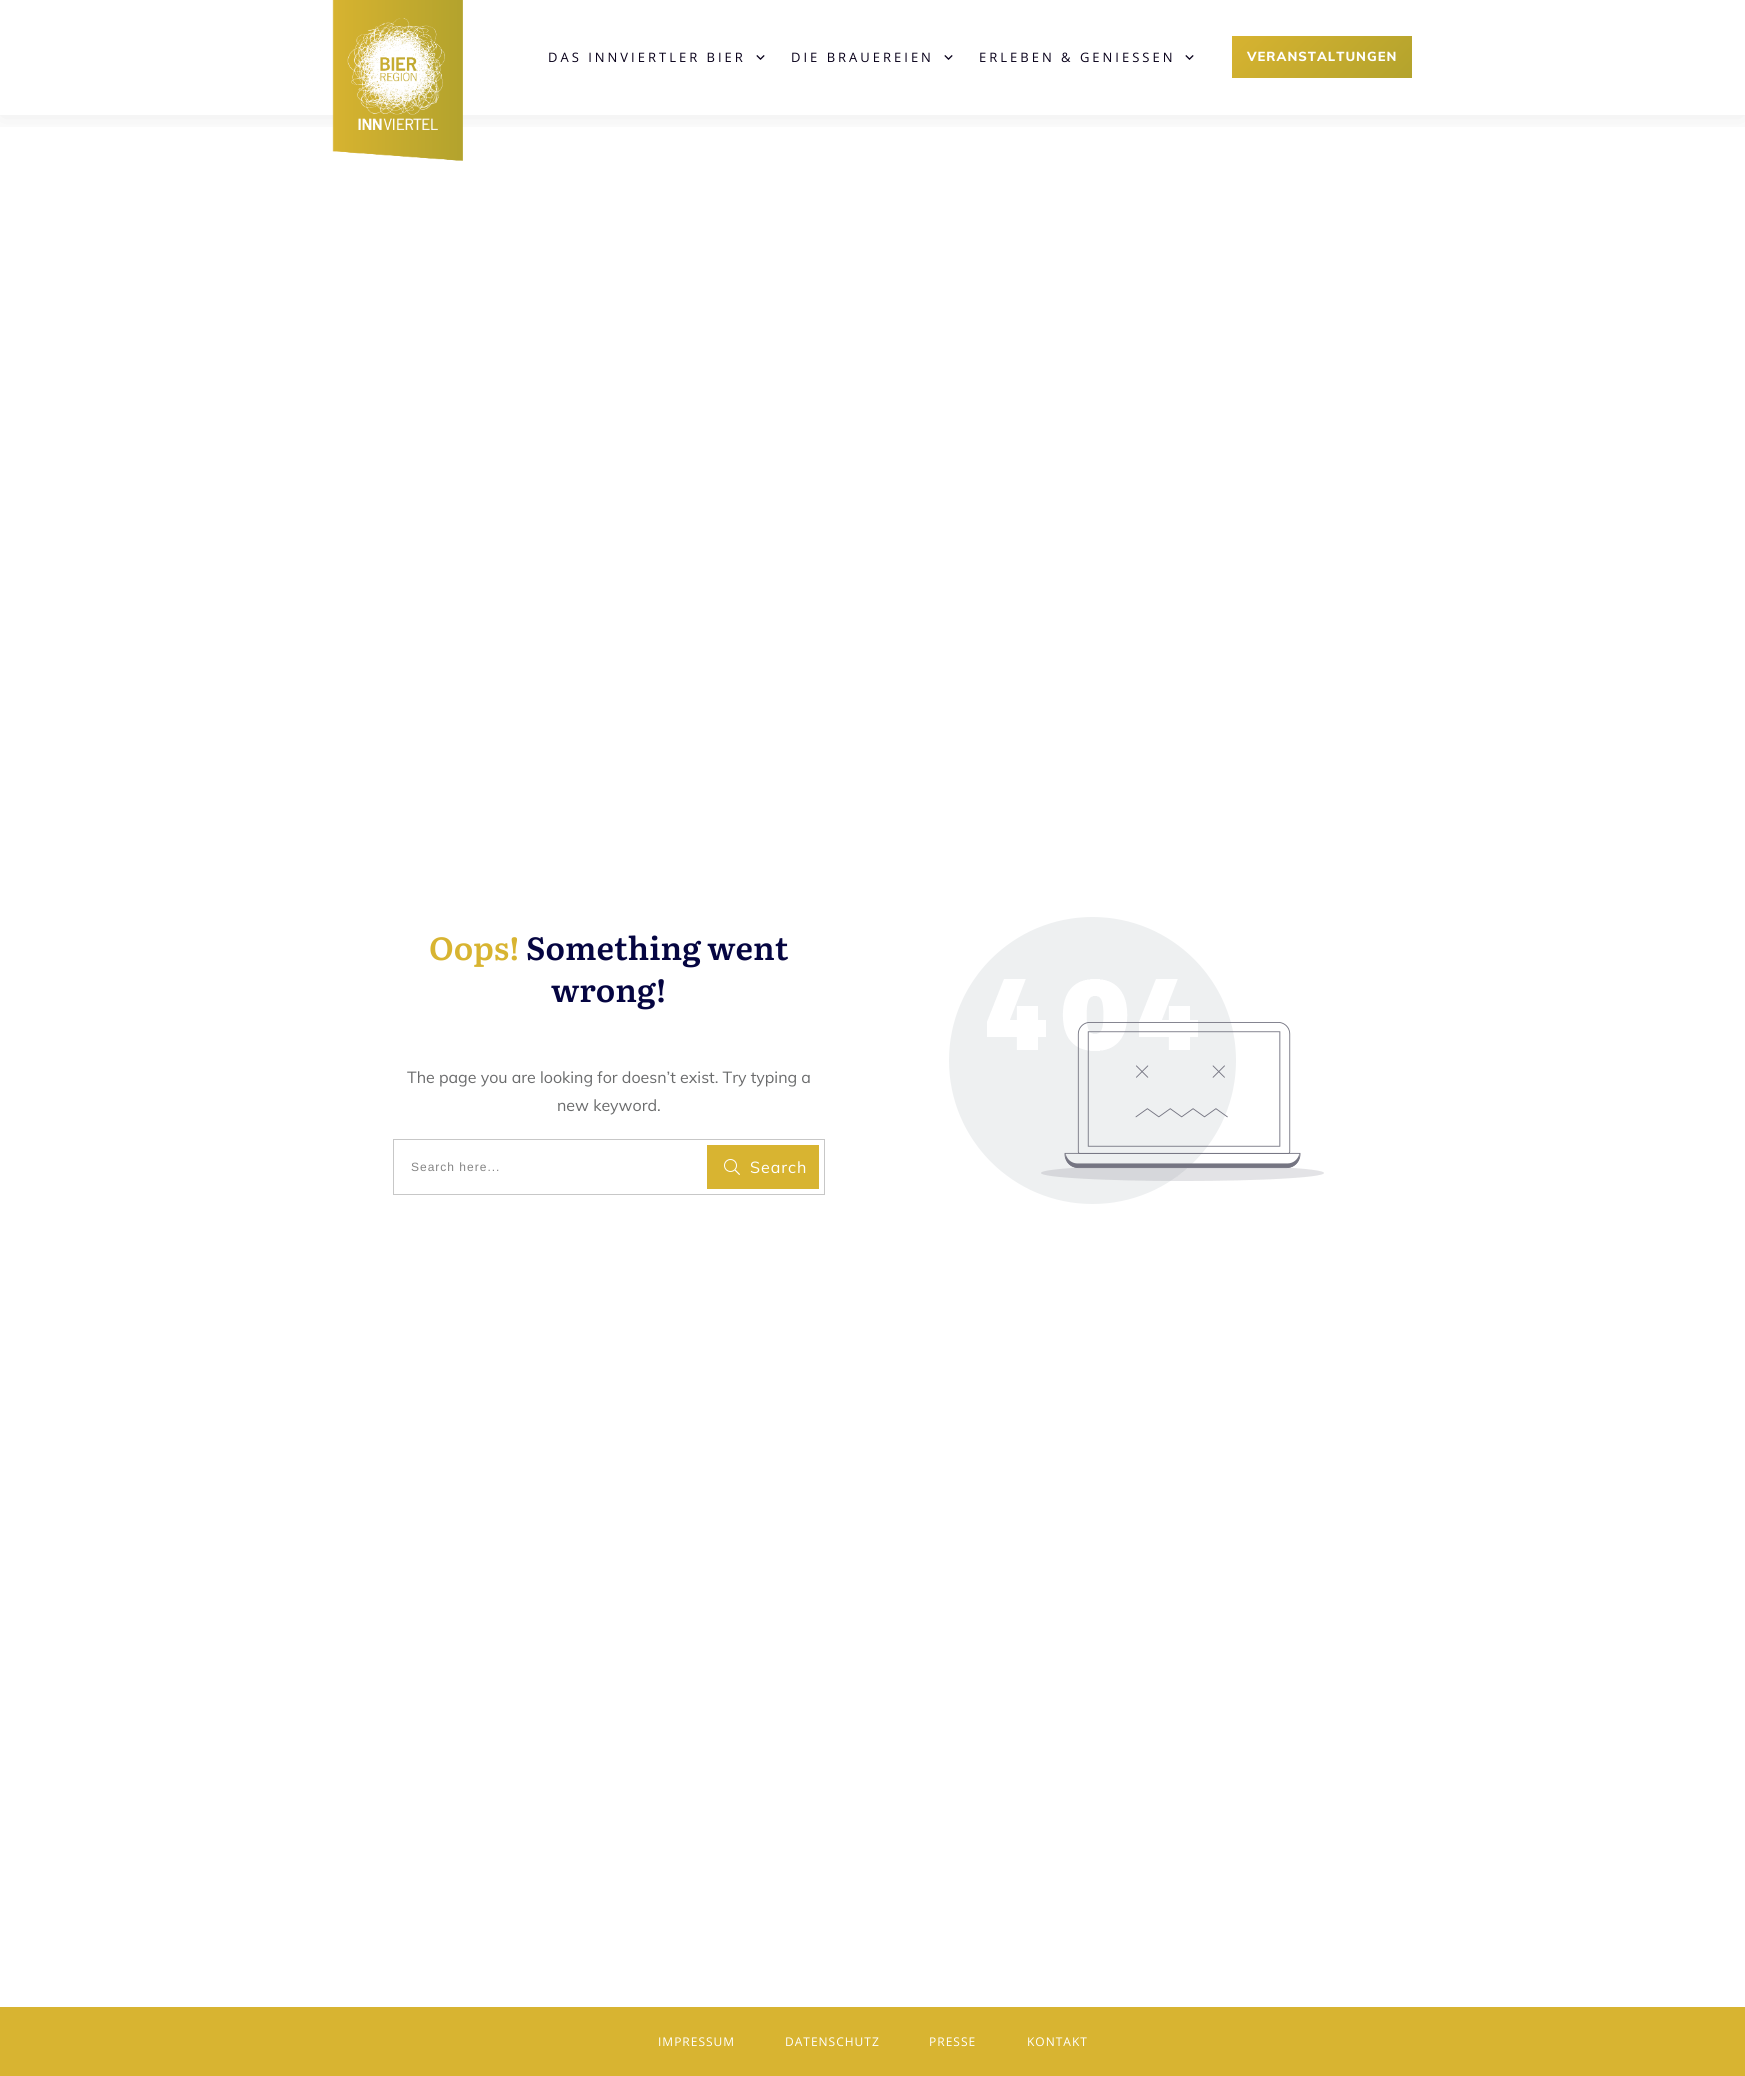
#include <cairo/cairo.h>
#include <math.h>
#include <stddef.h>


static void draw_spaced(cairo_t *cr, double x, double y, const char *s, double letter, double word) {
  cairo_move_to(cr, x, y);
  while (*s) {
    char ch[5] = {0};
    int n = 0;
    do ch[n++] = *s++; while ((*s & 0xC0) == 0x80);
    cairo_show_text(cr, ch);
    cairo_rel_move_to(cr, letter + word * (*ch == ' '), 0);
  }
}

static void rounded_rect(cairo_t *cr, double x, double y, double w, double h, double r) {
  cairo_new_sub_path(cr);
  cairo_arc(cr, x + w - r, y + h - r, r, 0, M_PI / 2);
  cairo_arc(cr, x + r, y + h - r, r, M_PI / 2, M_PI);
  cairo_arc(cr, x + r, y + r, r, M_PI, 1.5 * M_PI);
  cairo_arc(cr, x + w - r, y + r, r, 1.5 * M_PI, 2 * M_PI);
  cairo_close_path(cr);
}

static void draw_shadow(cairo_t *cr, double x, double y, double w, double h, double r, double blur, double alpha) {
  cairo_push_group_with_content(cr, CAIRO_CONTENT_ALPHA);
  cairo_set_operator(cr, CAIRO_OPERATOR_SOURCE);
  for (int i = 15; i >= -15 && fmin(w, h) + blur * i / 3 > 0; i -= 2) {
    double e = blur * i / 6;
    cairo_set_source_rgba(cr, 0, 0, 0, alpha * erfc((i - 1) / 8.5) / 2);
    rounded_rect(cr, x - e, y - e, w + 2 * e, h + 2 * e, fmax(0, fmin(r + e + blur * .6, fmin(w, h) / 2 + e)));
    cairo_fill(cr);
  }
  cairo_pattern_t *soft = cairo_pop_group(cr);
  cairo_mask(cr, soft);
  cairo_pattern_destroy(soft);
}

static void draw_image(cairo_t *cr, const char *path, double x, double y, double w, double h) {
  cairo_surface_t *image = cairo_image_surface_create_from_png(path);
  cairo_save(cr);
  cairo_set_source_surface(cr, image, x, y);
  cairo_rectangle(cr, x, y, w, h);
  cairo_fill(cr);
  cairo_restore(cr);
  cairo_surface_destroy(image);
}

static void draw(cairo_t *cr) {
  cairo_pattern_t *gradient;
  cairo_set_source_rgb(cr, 1, 1, 1);
  cairo_paint(cr);
  cairo_save(cr);
  cairo_rectangle(cr, 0, 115, 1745, 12);
  cairo_clip(cr);
  cairo_set_source_rgb(cr, 0, 0, 0);
  draw_shadow(cr, 0, 2, 1745, 115, 0, 15, 0.08);
  cairo_restore(cr);
  draw_image(cr, "images/1.png", 332, 0, 131, 161);
  draw_image(cr, "images/2.png", 756, 55, 9, 5);
  draw_image(cr, "images/2.png", 944, 55, 9, 5);
  draw_image(cr, "images/2.png", 1185, 55, 9, 5);
  gradient = cairo_pattern_create_linear(1267, 1.5, 1378, 113);
  cairo_pattern_add_color_stop_rgba(gradient, 0, 215 / 255.0, 179 / 255.0, 48 / 255.0, 1);
  cairo_pattern_add_color_stop_rgba(gradient, 1, 179 / 255.0, 163 / 255.0, 45 / 255.0, 1);
  cairo_set_source(cr, gradient);
  cairo_pattern_destroy(gradient);
  cairo_rectangle(cr, 1232, 36, 180, 42);
  cairo_fill(cr);
  cairo_rectangle(cr, 393.5, 1139.5, 431, 55);
  cairo_set_source_rgb(cr, 199 / 255.0, 199 / 255.0, 199 / 255.0);
  cairo_set_line_width(cr, 1);
  cairo_stroke(cr);
  cairo_set_source_rgb(cr, 216 / 255.0, 180 / 255.0, 49 / 255.0);
  cairo_rectangle(cr, 707, 1145, 112, 44);
  cairo_fill(cr);
  draw_image(cr, "images/3.png", 724, 1159, 16, 16);
  draw_image(cr, "images/4.png", 949, 917, 375, 287);
  cairo_rectangle(cr, 0, 2007, 1745, 69);
  cairo_fill(cr);
  cairo_select_font_face(cr, "Open Sans", CAIRO_FONT_SLANT_NORMAL, CAIRO_FONT_WEIGHT_NORMAL);
  cairo_set_font_size(cr, 13);
  cairo_set_source_rgb(cr, 8 / 255.0, 0, 26 / 255.0);
  draw_spaced(cr, 548, 62, "DAS INNVIERTLER BIER", 3, 0);
  draw_spaced(cr, 791, 62, "DIE BRAUEREIEN", 3, 0);
  draw_spaced(cr, 979, 62, "ERLEBEN & GENIESSEN", 3, 0);
  cairo_select_font_face(cr, "Muli ExtraBold", CAIRO_FONT_SLANT_NORMAL, CAIRO_FONT_WEIGHT_NORMAL);
  cairo_set_source_rgb(cr, 1, 1, 1);
  draw_spaced(cr, 1247, 61, "VERANSTALTUNGEN", 1, 0);
  cairo_select_font_face(cr, "Literata SemiBold", CAIRO_FONT_SLANT_NORMAL, CAIRO_FONT_WEIGHT_NORMAL);
  cairo_set_font_size(cr, 32);
  cairo_set_source_rgb(cr, 216 / 255.0, 180 / 255.0, 49 / 255.0);
  cairo_move_to(cr, 429, 960);
  cairo_show_text(cr, "Oops!");
  cairo_set_source_rgb(cr, 5 / 255.0, 5 / 255.0, 65 / 255.0);
  cairo_move_to(cr, 526, 960);
  cairo_show_text(cr, "Something went");
  cairo_move_to(cr, 551, 1002);
  cairo_show_text(cr, "wrong!");
  cairo_select_font_face(cr, "Muli", CAIRO_FONT_SLANT_NORMAL, CAIRO_FONT_WEIGHT_NORMAL);
  cairo_set_font_size(cr, 16);
  cairo_set_source_rgb(cr, 106 / 255.0, 107 / 255.0, 108 / 255.0);
  cairo_move_to(cr, 407, 1083);
  cairo_show_text(cr, "The page you are looking for doesn’t exist. Try typing a");
  cairo_move_to(cr, 557, 1111);
  cairo_show_text(cr, "new keyword.");
  cairo_select_font_face(cr, "Liberation Sans", CAIRO_FONT_SLANT_NORMAL, CAIRO_FONT_WEIGHT_NORMAL);
  cairo_set_font_size(cr, 12);
  cairo_set_source_rgb(cr, 133 / 255.0, 133 / 255.0, 133 / 255.0);
  draw_spaced(cr, 411, 1171, "Search here...", 1, 0);
  cairo_select_font_face(cr, "Muli", CAIRO_FONT_SLANT_NORMAL, CAIRO_FONT_WEIGHT_NORMAL);
  cairo_set_font_size(cr, 16);
  cairo_set_source_rgb(cr, 1, 1, 1);
  draw_spaced(cr, 750, 1173, "Search", 1, 0);
  cairo_select_font_face(cr, "Open Sans", CAIRO_FONT_SLANT_NORMAL, CAIRO_FONT_WEIGHT_NORMAL);
  cairo_set_font_size(cr, 12);
  draw_spaced(cr, 658, 2046, "IMPRESSUM", 1, 0);
  draw_spaced(cr, 785, 2046, "DATENSCHUTZ", 1, 0);
  draw_spaced(cr, 929, 2046, "PRESSE", 1, 0);
  draw_spaced(cr, 1027, 2046, "KONTAKT", 1, 0);
}

int main(void) {
  cairo_surface_t *surface = cairo_image_surface_create(CAIRO_FORMAT_RGB24, 1745, 2076);
  cairo_t *cr = cairo_create(surface);
  cairo_font_options_t *options = cairo_font_options_create();
  cairo_font_options_set_hint_metrics(options, CAIRO_HINT_METRICS_OFF);
  cairo_font_options_set_hint_style(options, CAIRO_HINT_STYLE_NONE);
  cairo_set_font_options(cr, options);
  cairo_set_miter_limit(cr, 4);
  draw(cr);
  cairo_surface_write_to_png(surface, "out.png");
  cairo_font_options_destroy(options);
  cairo_destroy(cr);
  cairo_surface_destroy(surface);
  return 0;
}
